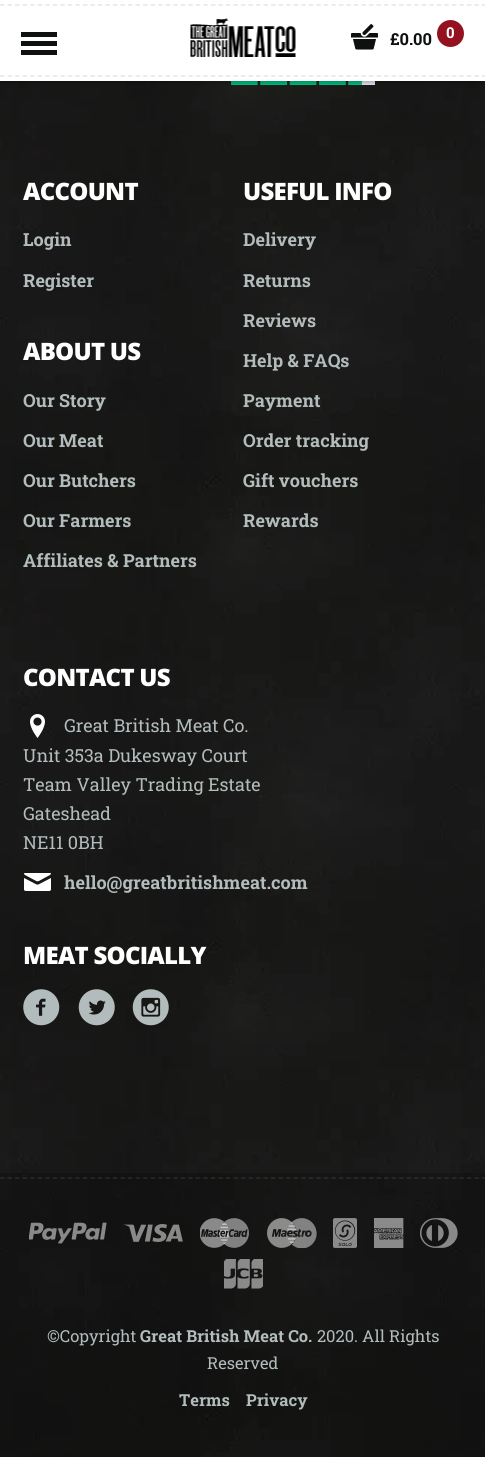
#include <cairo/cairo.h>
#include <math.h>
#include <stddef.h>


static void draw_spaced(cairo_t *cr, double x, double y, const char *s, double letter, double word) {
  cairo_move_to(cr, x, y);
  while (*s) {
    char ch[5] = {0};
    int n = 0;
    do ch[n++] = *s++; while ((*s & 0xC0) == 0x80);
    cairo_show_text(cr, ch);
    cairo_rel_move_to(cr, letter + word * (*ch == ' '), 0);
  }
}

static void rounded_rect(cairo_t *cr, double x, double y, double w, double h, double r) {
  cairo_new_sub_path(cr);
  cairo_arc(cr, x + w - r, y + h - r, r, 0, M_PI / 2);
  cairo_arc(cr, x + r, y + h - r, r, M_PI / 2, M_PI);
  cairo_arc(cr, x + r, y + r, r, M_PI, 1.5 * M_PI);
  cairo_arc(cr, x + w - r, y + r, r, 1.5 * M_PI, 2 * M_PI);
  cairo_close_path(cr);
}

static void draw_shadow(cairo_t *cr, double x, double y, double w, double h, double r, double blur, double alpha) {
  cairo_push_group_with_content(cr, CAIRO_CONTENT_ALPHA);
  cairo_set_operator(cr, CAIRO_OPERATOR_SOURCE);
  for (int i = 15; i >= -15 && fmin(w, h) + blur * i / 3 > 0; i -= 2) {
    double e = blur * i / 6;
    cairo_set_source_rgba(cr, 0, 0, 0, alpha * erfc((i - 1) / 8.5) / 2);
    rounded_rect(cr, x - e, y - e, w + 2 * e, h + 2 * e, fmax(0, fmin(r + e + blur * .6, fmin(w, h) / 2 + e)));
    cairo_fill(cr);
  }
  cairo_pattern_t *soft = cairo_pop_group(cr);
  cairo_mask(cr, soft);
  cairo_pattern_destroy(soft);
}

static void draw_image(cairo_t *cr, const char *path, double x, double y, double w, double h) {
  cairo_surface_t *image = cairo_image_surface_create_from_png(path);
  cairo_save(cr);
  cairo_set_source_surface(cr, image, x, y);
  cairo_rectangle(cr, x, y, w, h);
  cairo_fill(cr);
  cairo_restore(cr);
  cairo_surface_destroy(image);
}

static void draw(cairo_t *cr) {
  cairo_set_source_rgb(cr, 1, 1, 1);
  cairo_paint(cr);
  draw_image(cr, "images/3.png", 0, 81, 485, 1376);
  draw_image(cr, "images/4.png", 231, 81, 144, 4);
  cairo_set_source_rgb(cr, 0, 0, 0);
  draw_shadow(cr, 0, 2, 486, 81, 0, 1.5, 0.2);
  cairo_set_source_rgb(cr, 1, 1, 1);
  cairo_rectangle(cr, 0, 0, 485, 81);
  cairo_fill(cr);
  cairo_new_path(cr);
  cairo_move_to(cr, 0, 5);
  cairo_line_to(cr, 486, 5);
  cairo_set_source_rgb(cr, 230 / 255.0, 230 / 255.0, 230 / 255.0);
  cairo_set_line_width(cr, 1.5);
  cairo_set_dash(cr, (double[]){4.5, 3.03}, 2, 0);
  cairo_stroke(cr);
  cairo_new_path(cr);
  cairo_move_to(cr, 0, 76);
  cairo_line_to(cr, 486, 76);
  cairo_stroke(cr);
  cairo_set_source_rgb(cr, 14 / 255.0, 16 / 255.0, 16 / 255.0);
  cairo_rectangle(cr, 21, 41, 36, 5);
  cairo_fill(cr);
  cairo_rectangle(cr, 21, 32, 36, 5);
  cairo_fill(cr);
  cairo_rectangle(cr, 21, 50, 36, 5);
  cairo_fill(cr);
  draw_image(cr, "images/1.png", 190, 18, 106, 39);
  draw_image(cr, "images/2.png", 351, 24, 27, 26);
  cairo_set_source_rgb(cr, 148 / 255.0, 18 / 255.0, 31 / 255.0);
  cairo_arc(cr, 450.5, 33.5, 13.5, 0, 2 * M_PI);
  cairo_fill(cr);
  draw_image(cr, "images/5.png", 30, 714, 15, 24);
  draw_image(cr, "images/6.png", 24, 873, 27, 18);
  draw_image(cr, "images/7.png", 23, 989, 37, 37);
  draw_image(cr, "images/8.png", 78, 989, 37, 37);
  draw_image(cr, "images/9.png", 132, 989, 37, 37);
  cairo_set_source_rgba(cr, 0, 0, 0, 0.2);
  cairo_rectangle(cr, 0, 1173, 485, 284);
  cairo_fill(cr);
  cairo_new_path(cr);
  cairo_move_to(cr, 0, 1178);
  cairo_line_to(cr, 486, 1178);
  cairo_set_source_rgba(cr, 1, 1, 1, 0.1);
  cairo_stroke(cr);
  draw_image(cr, "images/10.png", 29, 1222, 78, 22);
  draw_image(cr, "images/11.png", 123, 1224, 60, 18);
  draw_image(cr, "images/12.png", 200, 1218, 49, 30);
  draw_image(cr, "images/13.png", 267, 1218, 50, 30);
  draw_image(cr, "images/14.png", 333, 1218, 24, 30);
  draw_image(cr, "images/15.png", 374, 1218, 30, 30);
  draw_image(cr, "images/16.png", 420, 1218, 38, 30);
  draw_image(cr, "images/17.png", 224, 1259, 39, 30);
  cairo_select_font_face(cr, "Roboto Slab", CAIRO_FONT_SLANT_NORMAL, CAIRO_FONT_WEIGHT_BOLD);
  cairo_set_font_size(cr, 16.5);
  cairo_set_source_rgb(cr, 14 / 255.0, 16 / 255.0, 16 / 255.0);
  cairo_move_to(cr, 390, 45);
  cairo_show_text(cr, "£0.00");
  cairo_set_font_size(cr, 15);
  cairo_set_source_rgb(cr, 1, 1, 1);
  cairo_move_to(cr, 446, 38);
  cairo_show_text(cr, "0");
  cairo_select_font_face(cr, "Open Sans ExtraBold", CAIRO_FONT_SLANT_NORMAL, CAIRO_FONT_WEIGHT_NORMAL);
  cairo_set_font_size(cr, 24);
  draw_spaced(cr, 23, 200, "ACCOUNT", -0.75, 0);
  cairo_select_font_face(cr, "Roboto Slab", CAIRO_FONT_SLANT_NORMAL, CAIRO_FONT_WEIGHT_BOLD);
  cairo_set_font_size(cr, 18);
  cairo_set_source_rgb(cr, 179 / 255.0, 188 / 255.0, 188 / 255.0);
  cairo_move_to(cr, 23, 246);
  cairo_show_text(cr, "Login");
  cairo_move_to(cr, 23, 287);
  cairo_show_text(cr, "Register");
  cairo_select_font_face(cr, "Open Sans ExtraBold", CAIRO_FONT_SLANT_NORMAL, CAIRO_FONT_WEIGHT_NORMAL);
  cairo_set_font_size(cr, 24);
  cairo_set_source_rgb(cr, 1, 1, 1);
  draw_spaced(cr, 23, 360, "ABOUT US", -0.75, 0);
  cairo_select_font_face(cr, "Roboto Slab", CAIRO_FONT_SLANT_NORMAL, CAIRO_FONT_WEIGHT_BOLD);
  cairo_set_font_size(cr, 18);
  cairo_set_source_rgb(cr, 179 / 255.0, 188 / 255.0, 188 / 255.0);
  cairo_move_to(cr, 23, 407);
  cairo_show_text(cr, "Our Story");
  cairo_move_to(cr, 23, 447);
  cairo_show_text(cr, "Our Meat");
  cairo_move_to(cr, 23, 487);
  cairo_show_text(cr, "Our Butchers");
  cairo_move_to(cr, 23, 527);
  cairo_show_text(cr, "Our Farmers");
  cairo_move_to(cr, 23, 567);
  cairo_show_text(cr, "Affiliates & Partners");
  cairo_select_font_face(cr, "Open Sans ExtraBold", CAIRO_FONT_SLANT_NORMAL, CAIRO_FONT_WEIGHT_NORMAL);
  cairo_set_font_size(cr, 24);
  cairo_set_source_rgb(cr, 1, 1, 1);
  draw_spaced(cr, 243, 200, "USEFUL INFO", -0.75, 0);
  cairo_select_font_face(cr, "Roboto Slab", CAIRO_FONT_SLANT_NORMAL, CAIRO_FONT_WEIGHT_BOLD);
  cairo_set_font_size(cr, 18);
  cairo_set_source_rgb(cr, 179 / 255.0, 188 / 255.0, 188 / 255.0);
  cairo_move_to(cr, 243, 246);
  cairo_show_text(cr, "Delivery");
  cairo_move_to(cr, 243, 287);
  cairo_show_text(cr, "Returns");
  cairo_move_to(cr, 243, 327);
  cairo_show_text(cr, "Reviews");
  cairo_move_to(cr, 243, 367);
  cairo_show_text(cr, "Help & FAQs");
  cairo_move_to(cr, 243, 407);
  cairo_show_text(cr, "Payment");
  cairo_move_to(cr, 243, 447);
  cairo_show_text(cr, "Order tracking");
  cairo_move_to(cr, 243, 487);
  cairo_show_text(cr, "Gift vouchers");
  cairo_move_to(cr, 243, 527);
  cairo_show_text(cr, "Rewards");
  cairo_select_font_face(cr, "Open Sans ExtraBold", CAIRO_FONT_SLANT_NORMAL, CAIRO_FONT_WEIGHT_NORMAL);
  cairo_set_font_size(cr, 24);
  cairo_set_source_rgb(cr, 1, 1, 1);
  draw_spaced(cr, 23, 686, "CONTACT US", -0.75, 0);
  cairo_select_font_face(cr, "Roboto Slab", CAIRO_FONT_SLANT_NORMAL, CAIRO_FONT_WEIGHT_NORMAL);
  cairo_set_font_size(cr, 18);
  cairo_set_source_rgb(cr, 179 / 255.0, 188 / 255.0, 188 / 255.0);
  cairo_move_to(cr, 64, 732);
  cairo_show_text(cr, "Great British Meat Co.");
  cairo_move_to(cr, 23, 762);
  cairo_show_text(cr, "Unit 353a Dukesway Court");
  cairo_move_to(cr, 23, 791);
  cairo_show_text(cr, "Team Valley Trading Estate");
  cairo_move_to(cr, 23, 820);
  cairo_show_text(cr, "Gateshead");
  cairo_move_to(cr, 23, 849);
  cairo_show_text(cr, "NE11 0BH");
  cairo_select_font_face(cr, "Roboto Slab", CAIRO_FONT_SLANT_NORMAL, CAIRO_FONT_WEIGHT_BOLD);
  cairo_move_to(cr, 64, 889);
  cairo_show_text(cr, "hello@greatbritishmeat.com");
  cairo_select_font_face(cr, "Open Sans ExtraBold", CAIRO_FONT_SLANT_NORMAL, CAIRO_FONT_WEIGHT_NORMAL);
  cairo_set_font_size(cr, 24);
  cairo_set_source_rgb(cr, 1, 1, 1);
  draw_spaced(cr, 23, 964, "MEAT SOCIALLY", -0.75, 0);
  cairo_select_font_face(cr, "Roboto Slab", CAIRO_FONT_SLANT_NORMAL, CAIRO_FONT_WEIGHT_NORMAL);
  cairo_set_font_size(cr, 16.5);
  cairo_set_source_rgb(cr, 179 / 255.0, 188 / 255.0, 188 / 255.0);
  cairo_move_to(cr, 47, 1342);
  cairo_show_text(cr, "©Copyright");
  cairo_select_font_face(cr, "Roboto Slab", CAIRO_FONT_SLANT_NORMAL, CAIRO_FONT_WEIGHT_BOLD);
  cairo_move_to(cr, 140, 1342);
  cairo_show_text(cr, "Great British Meat Co.");
  cairo_select_font_face(cr, "Roboto Slab", CAIRO_FONT_SLANT_NORMAL, CAIRO_FONT_WEIGHT_NORMAL);
  cairo_move_to(cr, 317, 1342);
  cairo_show_text(cr, "2020. All Rights");
  cairo_move_to(cr, 207, 1369);
  cairo_show_text(cr, "Reserved");
  cairo_select_font_face(cr, "Roboto Slab", CAIRO_FONT_SLANT_NORMAL, CAIRO_FONT_WEIGHT_BOLD);
  cairo_move_to(cr, 179, 1406);
  cairo_show_text(cr, "Terms");
  cairo_move_to(cr, 246, 1406);
  cairo_show_text(cr, "Privacy");
}

int main(void) {
  cairo_surface_t *surface = cairo_image_surface_create(CAIRO_FORMAT_RGB24, 485, 1457);
  cairo_t *cr = cairo_create(surface);
  cairo_font_options_t *options = cairo_font_options_create();
  cairo_font_options_set_hint_metrics(options, CAIRO_HINT_METRICS_OFF);
  cairo_font_options_set_hint_style(options, CAIRO_HINT_STYLE_NONE);
  cairo_set_font_options(cr, options);
  cairo_set_miter_limit(cr, 4);
  draw(cr);
  cairo_surface_write_to_png(surface, "out.png");
  cairo_font_options_destroy(options);
  cairo_destroy(cr);
  cairo_surface_destroy(surface);
  return 0;
}
